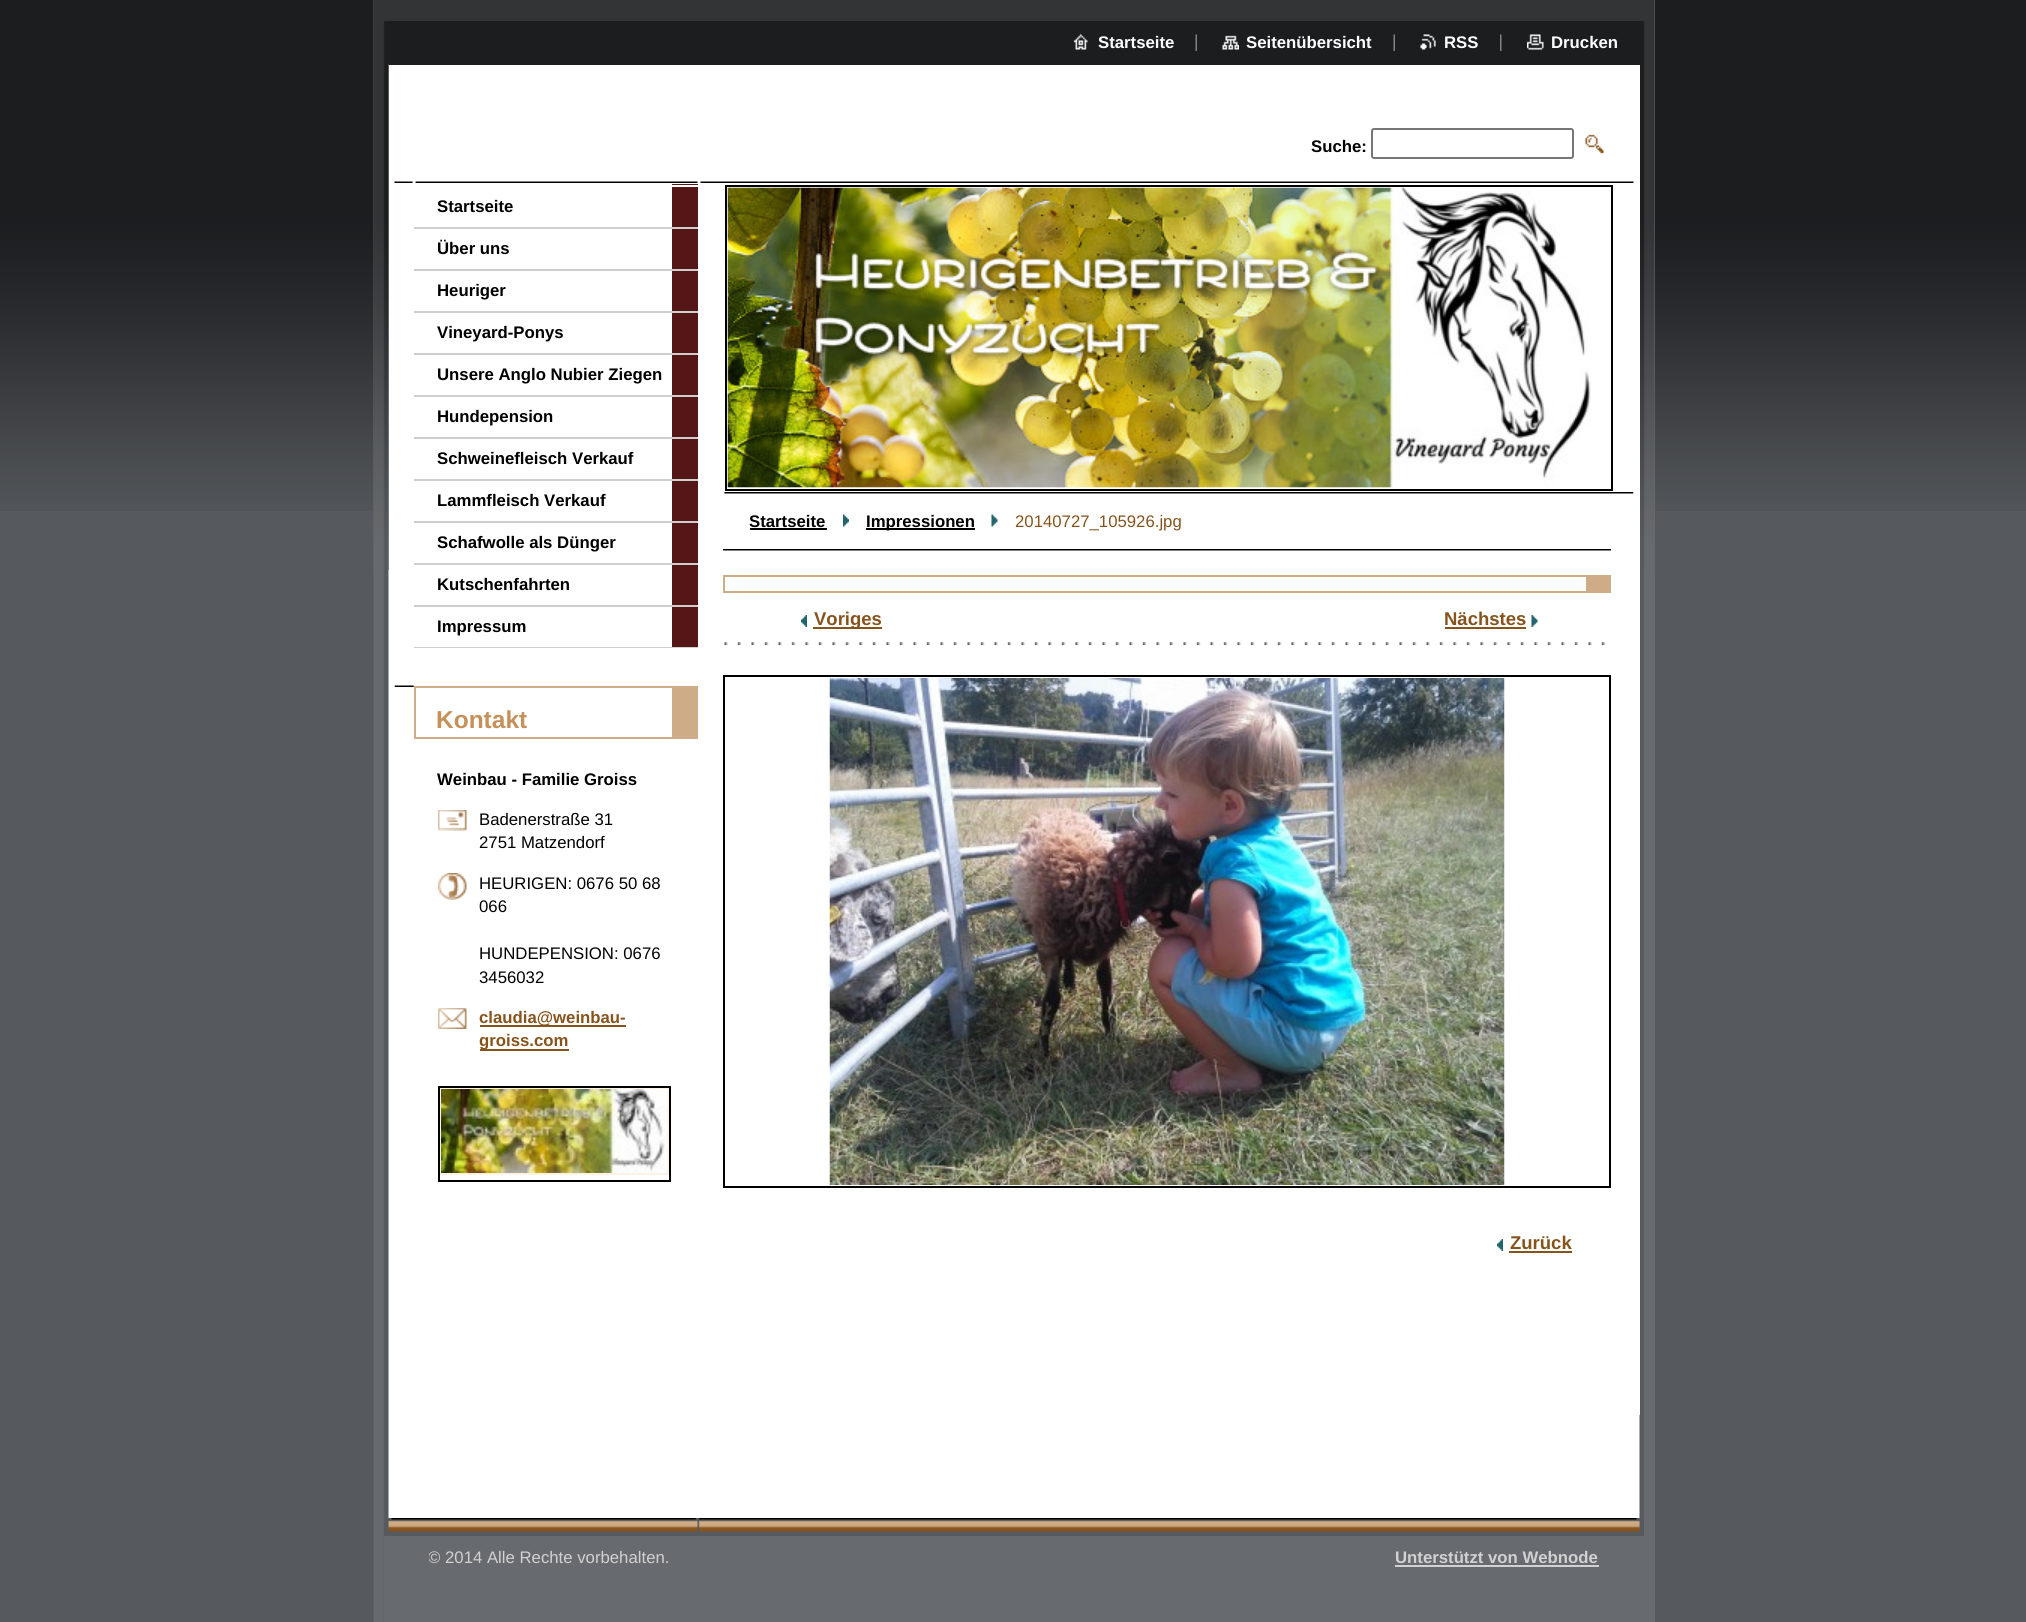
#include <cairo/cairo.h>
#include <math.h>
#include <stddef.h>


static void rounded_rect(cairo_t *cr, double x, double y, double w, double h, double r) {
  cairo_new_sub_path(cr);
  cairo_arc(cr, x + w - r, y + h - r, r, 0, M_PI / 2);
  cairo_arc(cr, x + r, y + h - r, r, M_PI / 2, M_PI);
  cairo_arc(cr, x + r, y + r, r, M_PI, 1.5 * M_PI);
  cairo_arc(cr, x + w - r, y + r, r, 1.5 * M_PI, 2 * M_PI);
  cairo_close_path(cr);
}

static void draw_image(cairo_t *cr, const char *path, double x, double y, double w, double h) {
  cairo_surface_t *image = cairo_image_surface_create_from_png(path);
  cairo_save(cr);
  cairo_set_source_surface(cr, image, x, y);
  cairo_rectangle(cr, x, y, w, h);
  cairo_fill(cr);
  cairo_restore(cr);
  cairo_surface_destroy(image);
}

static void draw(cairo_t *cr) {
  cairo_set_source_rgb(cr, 86 / 255.0, 89 / 255.0, 93 / 255.0);
  cairo_paint(cr);
  draw_image(cr, "images/1.png", 0, 0, 2026, 511);
  cairo_set_source_rgb(cr, 103 / 255.0, 106 / 255.0, 110 / 255.0);
  cairo_rectangle(cr, 1644, 0, 11, 1622);
  cairo_fill(cr);
  draw_image(cr, "images/2.png", 373, 0, 1271, 1622);
  draw_image(cr, "images/3.png", 373, 0, 1282, 570);
  cairo_set_source_rgb(cr, 1, 1, 1);
  cairo_rectangle(cr, 1639, 65, 1, 1350);
  cairo_fill(cr);
  cairo_set_source_rgb(cr, 50 / 255.0, 52 / 255.0, 54 / 255.0);
  cairo_rectangle(cr, 389, 20, 1251, 1);
  cairo_fill(cr);
  cairo_set_source_rgb(cr, 27 / 255.0, 29 / 255.0, 31 / 255.0);
  cairo_rectangle(cr, 389, 21, 1251, 44);
  cairo_fill(cr);
  draw_image(cr, "images/4.png", 1074, 34, 14, 16);
  draw_image(cr, "images/5.png", 1195, 34, 2, 17);
  draw_image(cr, "images/6.png", 1222, 35, 17, 15);
  draw_image(cr, "images/5.png", 1393, 34, 2, 17);
  draw_image(cr, "images/7.png", 1420, 34, 16, 16);
  draw_image(cr, "images/8.png", 1500, 34, 2, 17);
  draw_image(cr, "images/9.png", 1527, 34, 17, 16);
  rounded_rect(cr, 1372, 129, 201, 29, 2);
  cairo_set_source_rgb(cr, 118 / 255.0, 118 / 255.0, 118 / 255.0);
  cairo_stroke(cr);
  draw_image(cr, "images/10.png", 1585, 134, 19, 20);
  draw_image(cr, "images/11.png", 394, 181, 304, 2);
  cairo_set_source_rgb(cr, 84 / 255.0, 22 / 255.0, 23 / 255.0);
  cairo_rectangle(cr, 672, 184, 26, 463);
  cairo_fill(cr);
  cairo_set_source_rgb(cr, 1, 1, 1);
  cairo_rectangle(cr, 672, 185, 26, 2);
  cairo_fill(cr);
  cairo_set_source_rgb(cr, 207 / 255.0, 207 / 255.0, 207 / 255.0);
  cairo_rectangle(cr, 414, 227, 284, 2);
  cairo_fill(cr);
  cairo_rectangle(cr, 414, 269, 284, 2);
  cairo_fill(cr);
  cairo_rectangle(cr, 414, 311, 284, 2);
  cairo_fill(cr);
  cairo_rectangle(cr, 414, 353, 284, 2);
  cairo_fill(cr);
  cairo_rectangle(cr, 414, 395, 284, 2);
  cairo_fill(cr);
  cairo_rectangle(cr, 414, 437, 284, 2);
  cairo_fill(cr);
  cairo_rectangle(cr, 414, 479, 284, 2);
  cairo_fill(cr);
  cairo_rectangle(cr, 414, 521, 284, 2);
  cairo_fill(cr);
  cairo_rectangle(cr, 414, 563, 284, 2);
  cairo_fill(cr);
  cairo_rectangle(cr, 414, 605, 284, 2);
  cairo_fill(cr);
  cairo_rectangle(cr, 414, 647, 284, 1);
  cairo_fill(cr);
  draw_image(cr, "images/12.png", 394, 685, 21, 2);
  cairo_set_source_rgb(cr, 206 / 255.0, 172 / 255.0, 136 / 255.0);
  cairo_rectangle(cr, 414, 686, 258, 2);
  cairo_fill(cr);
  cairo_rectangle(cr, 672, 686, 26, 51);
  cairo_fill(cr);
  cairo_rectangle(cr, 414, 737, 284, 2);
  cairo_fill(cr);
  cairo_rectangle(cr, 414, 686, 2, 52);
  cairo_fill(cr);
  draw_image(cr, "images/13.png", 438, 810, 29, 21);
  draw_image(cr, "images/14.png", 438, 873, 29, 27);
  draw_image(cr, "images/15.png", 438, 1008, 29, 21);
  cairo_set_source_rgb(cr, 134 / 255.0, 83 / 255.0, 28 / 255.0);
  cairo_rectangle(cr, 480, 1025, 146, 2);
  cairo_fill(cr);
  cairo_rectangle(cr, 480, 1049, 63, 2);
  cairo_fill(cr);
  cairo_rectangle(cr, 543, 1049, 26, 2);
  cairo_fill(cr);
  cairo_rectangle(cr, 439, 1087, 231, 94);
  cairo_set_source_rgb(cr, 0, 0, 0);
  cairo_stroke(cr);
  cairo_rectangle(cr, 441, 1089, 227, 85);
  cairo_set_source_rgb(cr, 253 / 255.0, 242 / 255.0, 230 / 255.0);
  cairo_stroke(cr);
  draw_image(cr, "images/16.png", 441, 1089, 227, 84);
  draw_image(cr, "images/17.png", 700, 181, 934, 2);
  draw_image(cr, "images/18.png", 724, 492, 910, 2);
  cairo_rectangle(cr, 726, 186, 886, 304);
  cairo_set_source_rgb(cr, 0, 0, 0);
  cairo_stroke(cr);
  draw_image(cr, "images/19.png", 727, 187, 864, 301);
  draw_image(cr, "images/20.png", 723, 549, 888, 2);
  cairo_rectangle(cr, 750, 528, 77, 2);
  cairo_fill(cr);
  draw_image(cr, "images/21.png", 843, 514, 6, 13);
  cairo_rectangle(cr, 866, 528, 109, 2);
  cairo_fill(cr);
  draw_image(cr, "images/22.png", 991, 514, 7, 13);
  cairo_set_source_rgb(cr, 206 / 255.0, 172 / 255.0, 136 / 255.0);
  cairo_rectangle(cr, 723, 575, 863, 2);
  cairo_fill(cr);
  cairo_rectangle(cr, 1586, 575, 25, 16);
  cairo_fill(cr);
  cairo_rectangle(cr, 723, 591, 888, 2);
  cairo_fill(cr);
  cairo_rectangle(cr, 723, 575, 2, 18);
  cairo_fill(cr);
  draw_image(cr, "images/23.png", 724, 642, 882, 3);
  draw_image(cr, "images/24.png", 801, 615, 6, 12);
  cairo_set_source_rgb(cr, 134 / 255.0, 83 / 255.0, 28 / 255.0);
  cairo_rectangle(cr, 813, 627, 69, 2);
  cairo_fill(cr);
  cairo_rectangle(cr, 1445, 627, 81, 2);
  cairo_fill(cr);
  draw_image(cr, "images/25.png", 1531, 615, 7, 12);
  cairo_rectangle(cr, 724, 676, 886, 511);
  cairo_set_source_rgb(cr, 0, 0, 0);
  cairo_stroke(cr);
  draw_image(cr, "images/26.png", 829, 678, 676, 507);
  draw_image(cr, "images/27.png", 1497, 1239, 6, 12);
  cairo_set_source_rgb(cr, 134 / 255.0, 83 / 255.0, 28 / 255.0);
  cairo_rectangle(cr, 1509, 1251, 63, 2);
  cairo_fill(cr);
  cairo_set_source_rgb(cr, 103 / 255.0, 106 / 255.0, 110 / 255.0);
  cairo_rectangle(cr, 384, 1536, 1260, 86);
  cairo_fill(cr);
  draw_image(cr, "images/28.png", 384, 1518, 1260, 18);
  cairo_set_source_rgb(cr, 209 / 255.0, 209 / 255.0, 209 / 255.0);
  cairo_rectangle(cr, 1395, 1565, 204, 2);
  cairo_fill(cr);
  cairo_select_font_face(cr, "Liberation Sans", CAIRO_FONT_SLANT_NORMAL, CAIRO_FONT_WEIGHT_BOLD);
  cairo_set_font_size(cr, 16.75);
  cairo_set_source_rgb(cr, 1, 1, 1);
  cairo_move_to(cr, 1098, 48);
  cairo_show_text(cr, "Startseite");
  cairo_move_to(cr, 1246, 48);
  cairo_show_text(cr, "Seitenübersicht");
  cairo_move_to(cr, 1444, 48);
  cairo_show_text(cr, "RSS");
  cairo_move_to(cr, 1551, 48);
  cairo_show_text(cr, "Drucken");
  cairo_set_source_rgb(cr, 0, 0, 0);
  cairo_move_to(cr, 1311, 152);
  cairo_show_text(cr, "Suche:");
  cairo_move_to(cr, 437, 212);
  cairo_show_text(cr, "Startseite");
  cairo_move_to(cr, 437, 254);
  cairo_show_text(cr, "Über uns");
  cairo_move_to(cr, 437, 296);
  cairo_show_text(cr, "Heuriger");
  cairo_move_to(cr, 437, 338);
  cairo_show_text(cr, "Vineyard-Ponys");
  cairo_move_to(cr, 437, 380);
  cairo_show_text(cr, "Unsere Anglo Nubier Ziegen");
  cairo_move_to(cr, 437, 422);
  cairo_show_text(cr, "Hundepension");
  cairo_move_to(cr, 437, 464);
  cairo_show_text(cr, "Schweinefleisch Verkauf");
  cairo_move_to(cr, 437, 506);
  cairo_show_text(cr, "Lammfleisch Verkauf");
  cairo_move_to(cr, 437, 548);
  cairo_show_text(cr, "Schafwolle als Dünger");
  cairo_move_to(cr, 437, 590);
  cairo_show_text(cr, "Kutschenfahrten");
  cairo_move_to(cr, 437, 632);
  cairo_show_text(cr, "Impressum");
  cairo_set_font_size(cr, 24.5);
  cairo_set_source_rgb(cr, 198 / 255.0, 145 / 255.0, 89 / 255.0);
  cairo_move_to(cr, 436, 728);
  cairo_show_text(cr, "Kontakt");
  cairo_set_font_size(cr, 16.75);
  cairo_set_source_rgb(cr, 0, 0, 0);
  cairo_move_to(cr, 437, 785);
  cairo_show_text(cr, "Weinbau - Familie Groiss");
  cairo_select_font_face(cr, "Liberation Sans", CAIRO_FONT_SLANT_NORMAL, CAIRO_FONT_WEIGHT_NORMAL);
  cairo_move_to(cr, 479, 825);
  cairo_show_text(cr, "Badenerstraße 31");
  cairo_move_to(cr, 479, 848);
  cairo_show_text(cr, "2751 Matzendorf");
  cairo_move_to(cr, 479, 889);
  cairo_show_text(cr, "HEURIGEN: 0676 50 68");
  cairo_move_to(cr, 479, 912);
  cairo_show_text(cr, "066");
  cairo_move_to(cr, 479, 959);
  cairo_show_text(cr, "HUNDEPENSION: 0676");
  cairo_move_to(cr, 479, 983);
  cairo_show_text(cr, "3456032");
  cairo_select_font_face(cr, "Liberation Sans", CAIRO_FONT_SLANT_NORMAL, CAIRO_FONT_WEIGHT_BOLD);
  cairo_set_source_rgb(cr, 134 / 255.0, 83 / 255.0, 28 / 255.0);
  cairo_move_to(cr, 479, 1023);
  cairo_show_text(cr, "claudia@weinbau-");
  cairo_move_to(cr, 479, 1046);
  cairo_show_text(cr, "groiss.com");
  cairo_set_source_rgb(cr, 0, 0, 0);
  cairo_move_to(cr, 749, 527);
  cairo_show_text(cr, "Startseite");
  cairo_move_to(cr, 866, 527);
  cairo_show_text(cr, "Impressionen");
  cairo_select_font_face(cr, "Liberation Sans", CAIRO_FONT_SLANT_NORMAL, CAIRO_FONT_WEIGHT_NORMAL);
  cairo_set_source_rgb(cr, 134 / 255.0, 83 / 255.0, 28 / 255.0);
  cairo_move_to(cr, 1015, 527);
  cairo_show_text(cr, "20140727_105926.jpg");
  cairo_select_font_face(cr, "Liberation Sans", CAIRO_FONT_SLANT_NORMAL, CAIRO_FONT_WEIGHT_BOLD);
  cairo_set_font_size(cr, 18.5);
  cairo_move_to(cr, 814, 625);
  cairo_show_text(cr, "Voriges");
  cairo_move_to(cr, 1444, 625);
  cairo_show_text(cr, "Nächstes");
  cairo_move_to(cr, 1510, 1249);
  cairo_show_text(cr, "Zurück");
  cairo_save(cr);
  cairo_rectangle(cr, 429, 1548, 720, 21);
  cairo_clip(cr);
  cairo_select_font_face(cr, "Liberation Sans", CAIRO_FONT_SLANT_NORMAL, CAIRO_FONT_WEIGHT_NORMAL);
  cairo_set_font_size(cr, 16.75);
  cairo_set_source_rgb(cr, 209 / 255.0, 209 / 255.0, 209 / 255.0);
  cairo_move_to(cr, 428, 1563);
  cairo_show_text(cr, "© 2014 Alle Rechte vorbehalten.");
  cairo_restore(cr);
  cairo_set_font_size(cr, 16.75);
  cairo_set_source_rgb(cr, 209 / 255.0, 209 / 255.0, 209 / 255.0);
  cairo_move_to(cr, 1395, 1563);
  cairo_show_text(cr, "Unterstützt von Webnode");
}

int main(void) {
  cairo_surface_t *surface = cairo_image_surface_create(CAIRO_FORMAT_RGB24, 2026, 1622);
  cairo_t *cr = cairo_create(surface);
  cairo_font_options_t *options = cairo_font_options_create();
  cairo_font_options_set_hint_metrics(options, CAIRO_HINT_METRICS_OFF);
  cairo_font_options_set_hint_style(options, CAIRO_HINT_STYLE_NONE);
  cairo_set_font_options(cr, options);
  cairo_set_miter_limit(cr, 4);
  draw(cr);
  cairo_surface_write_to_png(surface, "out.png");
  cairo_font_options_destroy(options);
  cairo_destroy(cr);
  cairo_surface_destroy(surface);
  return 0;
}
